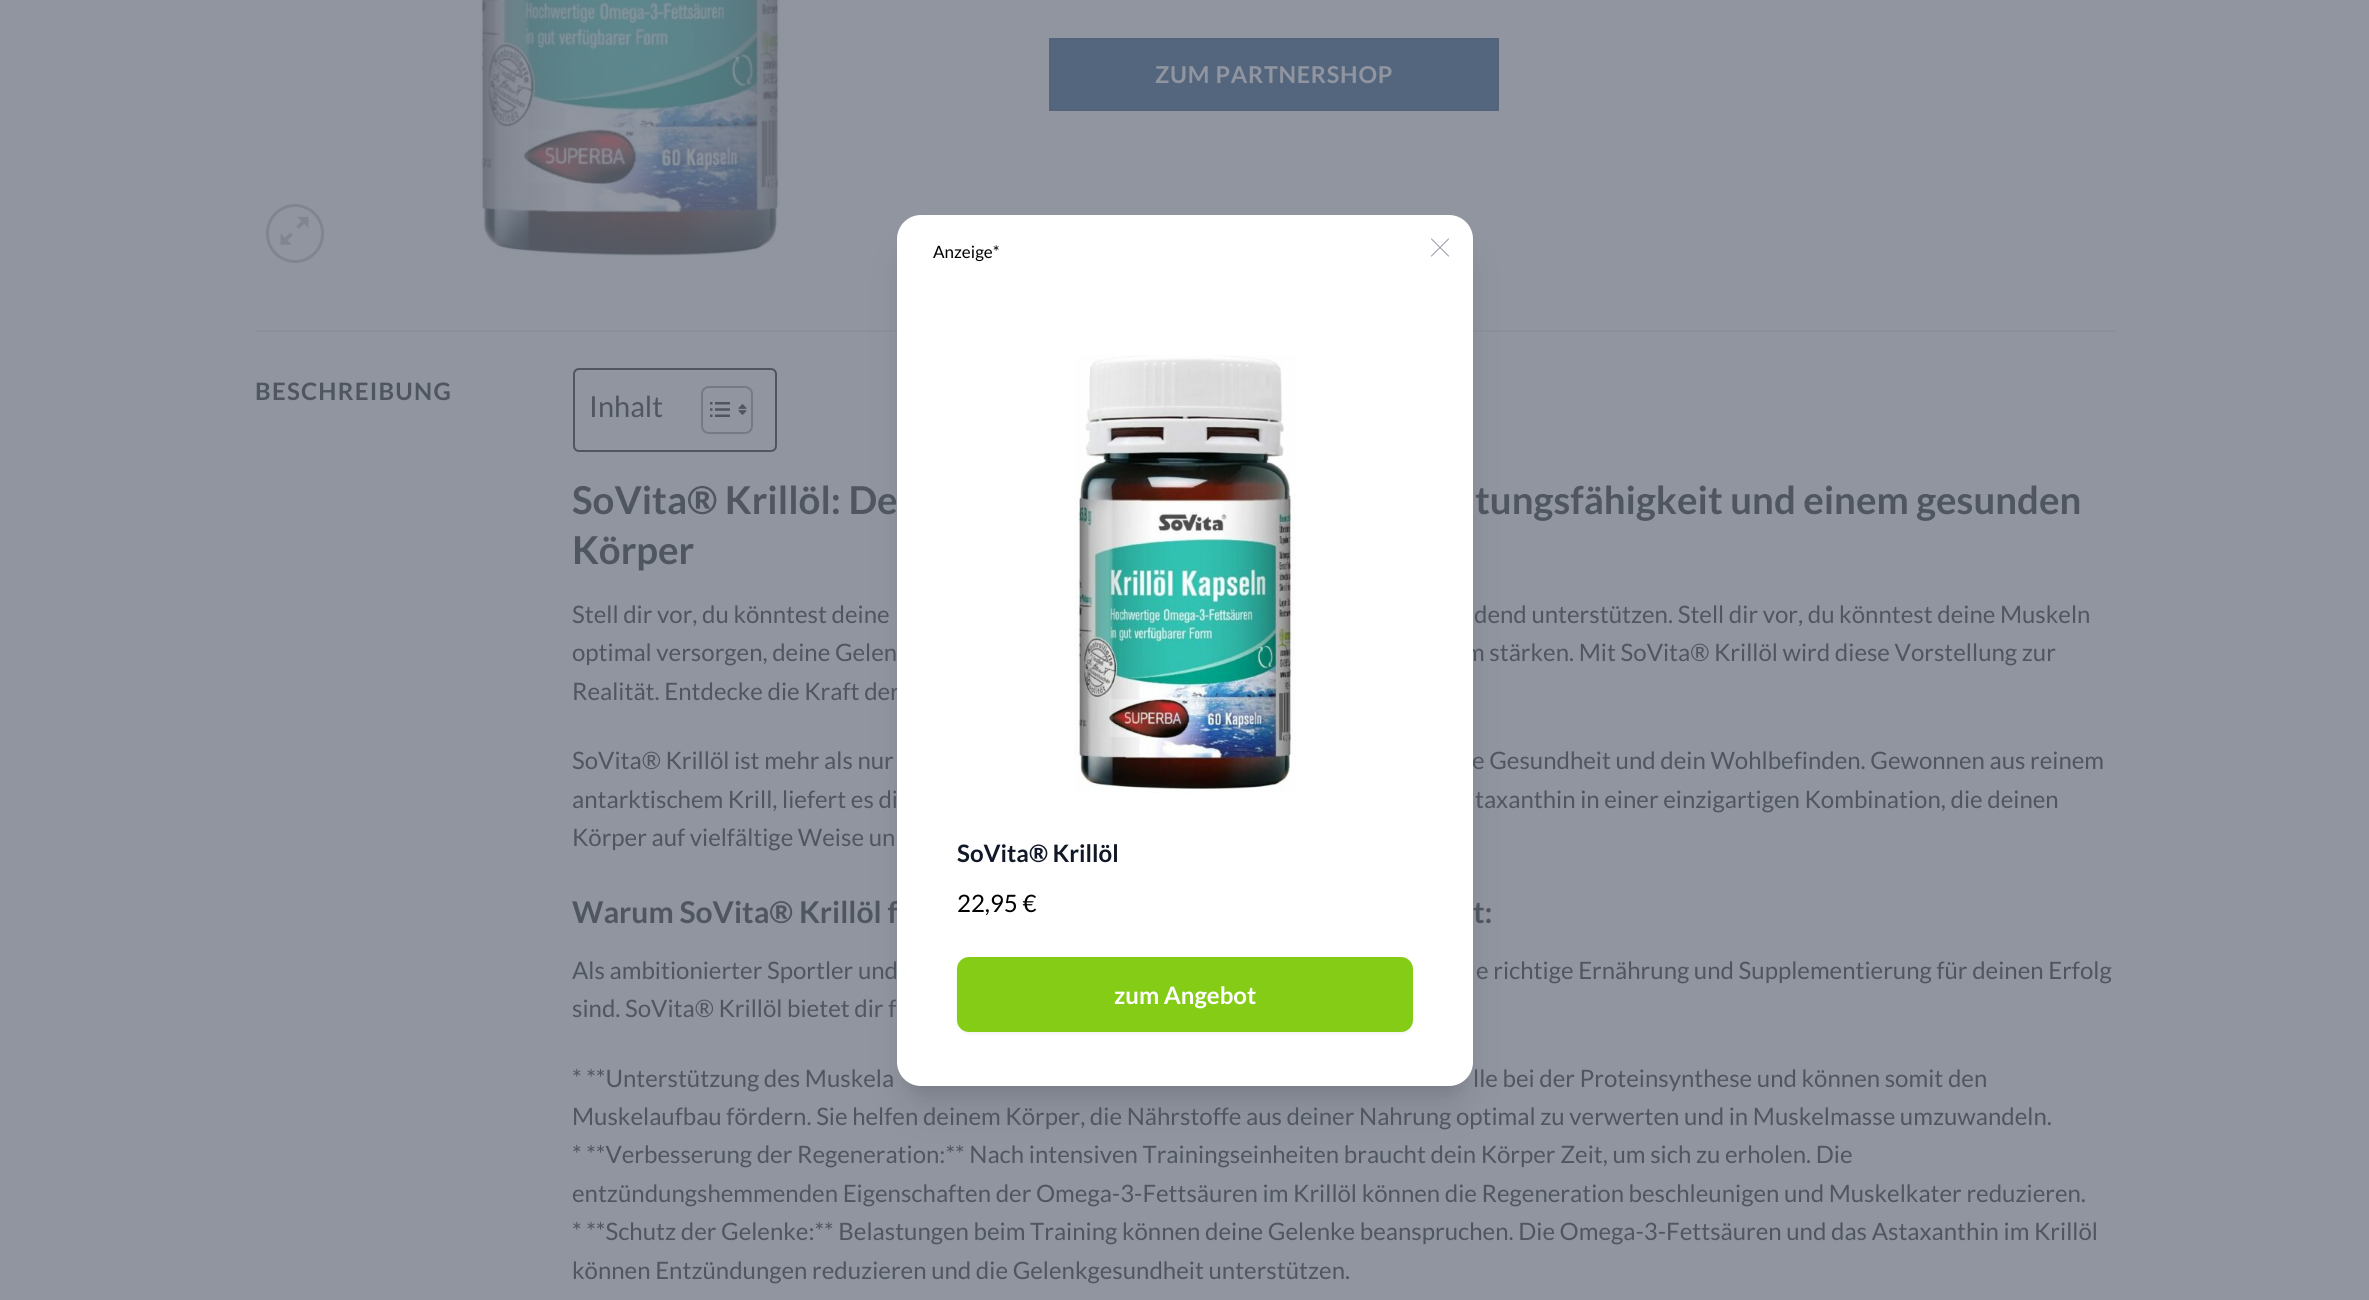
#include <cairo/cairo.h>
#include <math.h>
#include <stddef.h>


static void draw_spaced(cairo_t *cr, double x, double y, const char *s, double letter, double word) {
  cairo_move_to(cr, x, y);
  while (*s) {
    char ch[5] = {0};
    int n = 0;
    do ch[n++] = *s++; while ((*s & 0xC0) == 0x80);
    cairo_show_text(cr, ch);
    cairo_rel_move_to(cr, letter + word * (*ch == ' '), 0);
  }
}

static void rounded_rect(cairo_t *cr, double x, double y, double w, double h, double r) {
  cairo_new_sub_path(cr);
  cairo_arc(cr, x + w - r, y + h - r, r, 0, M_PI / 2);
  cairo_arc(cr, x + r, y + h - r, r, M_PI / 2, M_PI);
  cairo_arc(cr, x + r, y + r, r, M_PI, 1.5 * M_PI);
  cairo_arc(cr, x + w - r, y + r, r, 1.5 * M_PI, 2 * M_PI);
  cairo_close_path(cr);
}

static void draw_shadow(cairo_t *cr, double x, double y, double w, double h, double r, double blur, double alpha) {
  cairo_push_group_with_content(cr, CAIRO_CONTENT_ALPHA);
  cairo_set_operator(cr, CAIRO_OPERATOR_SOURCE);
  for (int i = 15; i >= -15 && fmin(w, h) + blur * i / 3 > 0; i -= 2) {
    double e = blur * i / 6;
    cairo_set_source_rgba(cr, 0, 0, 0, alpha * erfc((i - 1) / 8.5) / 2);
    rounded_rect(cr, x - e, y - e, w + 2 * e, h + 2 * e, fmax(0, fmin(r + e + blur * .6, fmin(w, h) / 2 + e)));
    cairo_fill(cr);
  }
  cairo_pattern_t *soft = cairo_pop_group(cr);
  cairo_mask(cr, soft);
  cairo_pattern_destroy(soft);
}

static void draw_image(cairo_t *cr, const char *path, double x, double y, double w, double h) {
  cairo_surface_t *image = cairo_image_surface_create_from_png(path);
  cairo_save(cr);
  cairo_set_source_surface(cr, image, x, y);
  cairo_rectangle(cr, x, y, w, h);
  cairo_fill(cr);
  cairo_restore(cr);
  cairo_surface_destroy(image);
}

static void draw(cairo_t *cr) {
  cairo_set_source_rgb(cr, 144 / 255.0, 149 / 255.0, 160 / 255.0);
  cairo_paint(cr);
  rounded_rect(cr, 267.5, 205.5, 55, 56, 27.5);
  cairo_set_source_rgb(cr, 128 / 255.0, 134 / 255.0, 144 / 255.0);
  cairo_set_line_width(cr, 3);
  cairo_stroke(cr);
  draw_image(cr, "images/1.png", 280, 216, 29, 29);
  draw_image(cr, "images/2.png", 476, 0, 310, 260);
  cairo_set_source_rgb(cr, 84 / 255.0, 102 / 255.0, 125 / 255.0);
  cairo_rectangle(cr, 1050, 39, 448, 71);
  cairo_fill_preserve(cr);
  cairo_set_source_rgb(cr, 84 / 255.0, 101 / 255.0, 123 / 255.0);
  cairo_set_line_width(cr, 2);
  cairo_stroke(cr);
  cairo_set_source_rgb(cr, 139 / 255.0, 145 / 255.0, 155 / 255.0);
  cairo_rectangle(cr, 255, 330, 1860, 2);
  cairo_fill(cr);
  rounded_rect(cr, 574, 369, 202, 82, 5);
  cairo_set_source_rgb(cr, 80 / 255.0, 86 / 255.0, 96 / 255.0);
  cairo_stroke(cr);
  rounded_rect(cr, 702, 387, 50, 46, 7);
  cairo_set_source_rgb(cr, 119 / 255.0, 122 / 255.0, 132 / 255.0);
  cairo_stroke(cr);
  draw_image(cr, "images/3.png", 710, 402, 20, 15);
  draw_image(cr, "images/4.png", 738, 404, 9, 11);
  cairo_set_source_rgb(cr, 0, 0, 0);
  draw_shadow(cr, 906, 236, 558, 853, 15, 7.5, 0.1);
  draw_shadow(cr, 905, 252, 561, 857, 17, 19, 0.1);
  cairo_select_font_face(cr, "Lato", CAIRO_FONT_SLANT_NORMAL, CAIRO_FONT_WEIGHT_BOLD);
  cairo_set_font_size(cr, 23.25);
  cairo_set_source_rgb(cr, 144 / 255.0, 149 / 255.0, 160 / 255.0);
  draw_spaced(cr, 1155, 83, "ZUM PARTNERSHOP", 0.75, 0);
  cairo_set_font_size(cr, 24);
  cairo_set_source_rgb(cr, 80 / 255.0, 86 / 255.0, 96 / 255.0);
  draw_spaced(cr, 255, 400, "BESCHREIBUNG", 1.25, 0);
  cairo_select_font_face(cr, "Lato", CAIRO_FONT_SLANT_NORMAL, CAIRO_FONT_WEIGHT_NORMAL);
  cairo_set_font_size(cr, 29);
  cairo_move_to(cr, 589, 417);
  cairo_show_text(cr, "Inhalt");
  cairo_select_font_face(cr, "Lato", CAIRO_FONT_SLANT_NORMAL, CAIRO_FONT_WEIGHT_BOLD);
  cairo_set_font_size(cr, 38.4);
  cairo_move_to(cr, 572, 514);
  cairo_show_text(cr, "SoVita® Krillöl: De");
  cairo_move_to(cr, 1475, 514);
  cairo_show_text(cr, "tungsfähigkeit und einem gesunden");
  cairo_move_to(cr, 572, 564);
  cairo_show_text(cr, "Körper");
  cairo_select_font_face(cr, "Lato", CAIRO_FONT_SLANT_NORMAL, CAIRO_FONT_WEIGHT_NORMAL);
  cairo_set_font_size(cr, 24);
  cairo_move_to(cr, 572, 623);
  cairo_show_text(cr, "Stell dir vor, du könntest deine");
  cairo_move_to(cr, 1474, 623);
  cairo_show_text(cr, "dend unterstützen. Stell dir vor, du könntest deine Muskeln");
  cairo_move_to(cr, 572, 661);
  cairo_show_text(cr, "optimal versorgen, deine Gelen");
  cairo_move_to(cr, 1465, 661);
  cairo_show_text(cr, "m stärken. Mit SoVita® Krillöl wird diese Vorstellung zur");
  cairo_move_to(cr, 572, 700);
  cairo_show_text(cr, "Realität. Entdecke die Kraft der");
  cairo_move_to(cr, 572, 769);
  cairo_show_text(cr, "SoVita® Krillöl ist mehr als nur");
  cairo_move_to(cr, 1472, 769);
  cairo_show_text(cr, "e Gesundheit und dein Wohlbefinden. Gewonnen aus reinem");
  cairo_move_to(cr, 572, 808);
  cairo_show_text(cr, "antarktischem Krill, liefert es di");
  cairo_move_to(cr, 1475, 808);
  cairo_show_text(cr, "taxanthin in einer einzigartigen Kombination, die deinen");
  cairo_move_to(cr, 572, 846);
  cairo_show_text(cr, "Körper auf vielfältige Weise un");
  cairo_select_font_face(cr, "Lato", CAIRO_FONT_SLANT_NORMAL, CAIRO_FONT_WEIGHT_BOLD);
  cairo_set_font_size(cr, 30);
  cairo_move_to(cr, 572, 923);
  cairo_show_text(cr, "Warum SoVita® Krillöl f");
  cairo_move_to(cr, 1473, 923);
  cairo_show_text(cr, "t:");
  cairo_select_font_face(cr, "Lato", CAIRO_FONT_SLANT_NORMAL, CAIRO_FONT_WEIGHT_NORMAL);
  cairo_set_font_size(cr, 24);
  cairo_move_to(cr, 572, 979);
  cairo_show_text(cr, "Als ambitionierter Sportler und");
  cairo_move_to(cr, 1476, 979);
  cairo_show_text(cr, "e richtige Ernährung und Supplementierung für deinen Erfolg");
  cairo_move_to(cr, 572, 1017);
  cairo_show_text(cr, "sind. SoVita® Krillöl bietet dir f");
  cairo_move_to(cr, 572, 1087);
  cairo_show_text(cr, "* **Unterstützung des Muskela");
  cairo_move_to(cr, 1473, 1087);
  cairo_show_text(cr, "lle bei der Proteinsynthese und können somit den");
  cairo_move_to(cr, 572, 1125);
  cairo_show_text(cr, "Muskelaufbau fördern. Sie helfen deinem Körper, die Nährstoffe aus deiner Nahrung optimal zu verwerten und in Muskelmasse umzuwandeln.");
  cairo_move_to(cr, 572, 1163);
  cairo_show_text(cr, "* **Verbesserung der Regeneration:** Nach intensiven Trainingseinheiten braucht dein Körper Zeit, um sich zu erholen. Die");
  cairo_move_to(cr, 572, 1202);
  cairo_show_text(cr, "entzündungshemmenden Eigenschaften der Omega-3-Fettsäuren im Krillöl können die Regeneration beschleunigen und Muskelkater reduzieren.");
  cairo_move_to(cr, 572, 1240);
  cairo_show_text(cr, "* **Schutz der Gelenke:** Belastungen beim Training können deine Gelenke beanspruchen. Die Omega-3-Fettsäuren und das Astaxanthin im Krillöl");
  cairo_move_to(cr, 572, 1279);
  cairo_show_text(cr, "können Entzündungen reduzieren und die Gelenkgesundheit unterstützen.");
  cairo_set_source_rgb(cr, 1, 1, 1);
  rounded_rect(cr, 897, 215, 576, 871, 24);
  cairo_fill(cr);
  cairo_set_font_size(cr, 17);
  cairo_set_source_rgb(cr, 0, 0, 0);
  cairo_move_to(cr, 933, 258);
  cairo_show_text(cr, "Anzeige*");
  cairo_new_path(cr);
  cairo_move_to(cr, 1431.5, 256);
  cairo_line_to(cr, 1448.5, 239);
  cairo_move_to(cr, 1431.5, 239);
  cairo_line_to(cr, 1448.5, 256);
  cairo_set_source_rgb(cr, 156 / 255.0, 163 / 255.0, 175 / 255.0);
  cairo_set_line_width(cr, 1.1);
  cairo_set_line_cap(cr, CAIRO_LINE_CAP_ROUND);
  cairo_set_line_join(cr, CAIRO_LINE_JOIN_ROUND);
  cairo_stroke(cr);
  draw_image(cr, "images/5.png", 1074, 355, 222, 438);
  cairo_select_font_face(cr, "Lato", CAIRO_FONT_SLANT_NORMAL, CAIRO_FONT_WEIGHT_BOLD);
  cairo_set_font_size(cr, 24);
  cairo_set_source_rgb(cr, 17 / 255.0, 24 / 255.0, 39 / 255.0);
  cairo_move_to(cr, 957, 862);
  cairo_show_text(cr, "SoVita® Krillöl");
  cairo_select_font_face(cr, "Lato", CAIRO_FONT_SLANT_NORMAL, CAIRO_FONT_WEIGHT_NORMAL);
  cairo_set_source_rgb(cr, 0, 0, 0);
  cairo_move_to(cr, 957, 912);
  cairo_show_text(cr, "22,95 €");
  cairo_set_source_rgb(cr, 0, 0, 0);
  draw_shadow(cr, 957, 959, 456, 75, 12, 1.5, 0.05);
  cairo_set_source_rgb(cr, 132 / 255.0, 204 / 255.0, 22 / 255.0);
  rounded_rect(cr, 957, 957, 456, 75, 12);
  cairo_fill(cr);
  cairo_select_font_face(cr, "Lato", CAIRO_FONT_SLANT_NORMAL, CAIRO_FONT_WEIGHT_BOLD);
  cairo_set_source_rgb(cr, 1, 1, 1);
  cairo_move_to(cr, 1114, 1004);
  cairo_show_text(cr, "zum Angebot");
}

int main(void) {
  cairo_surface_t *surface = cairo_image_surface_create(CAIRO_FORMAT_RGB24, 2369, 1300);
  cairo_t *cr = cairo_create(surface);
  cairo_font_options_t *options = cairo_font_options_create();
  cairo_font_options_set_hint_metrics(options, CAIRO_HINT_METRICS_OFF);
  cairo_font_options_set_hint_style(options, CAIRO_HINT_STYLE_NONE);
  cairo_set_font_options(cr, options);
  cairo_set_miter_limit(cr, 4);
  draw(cr);
  cairo_surface_write_to_png(surface, "out.png");
  cairo_font_options_destroy(options);
  cairo_destroy(cr);
  cairo_surface_destroy(surface);
  return 0;
}
